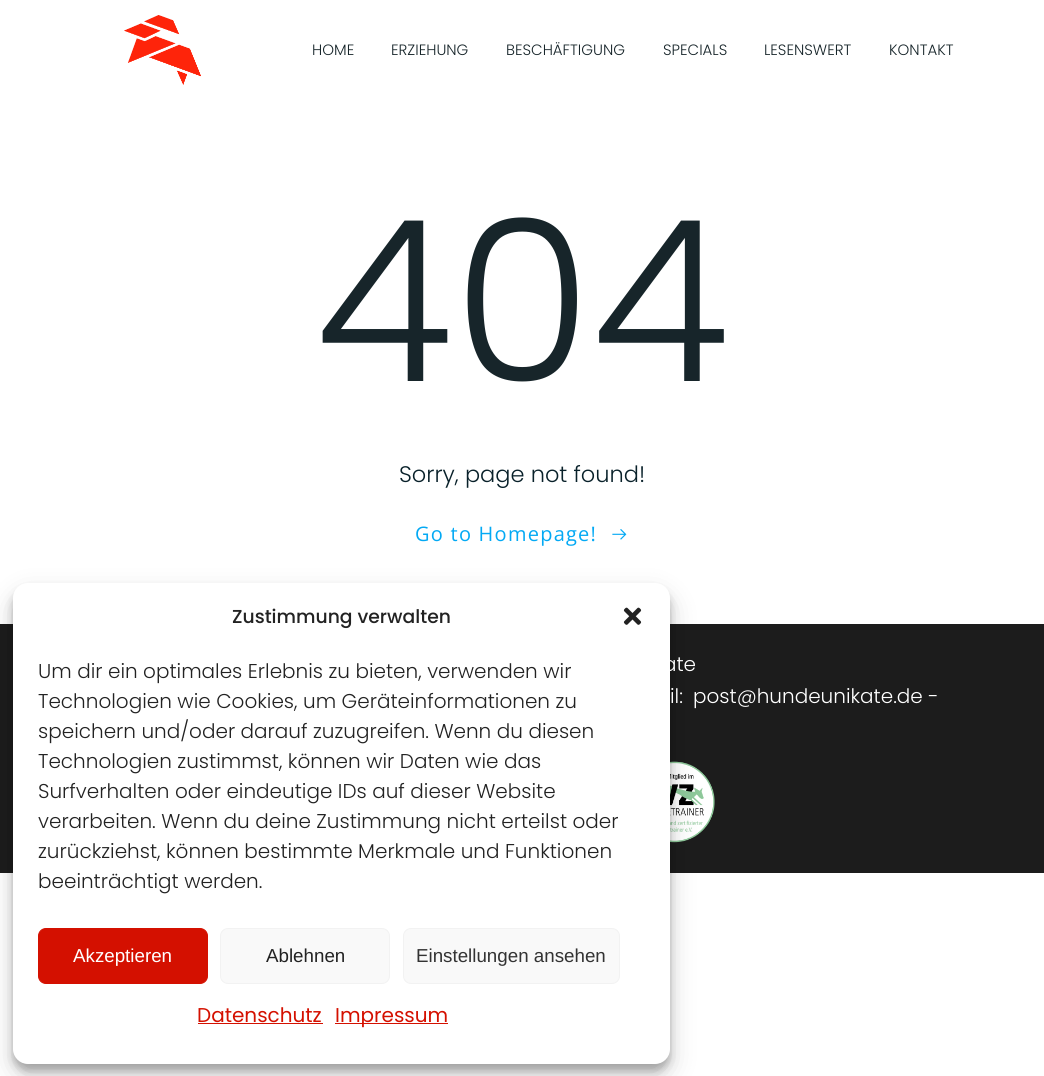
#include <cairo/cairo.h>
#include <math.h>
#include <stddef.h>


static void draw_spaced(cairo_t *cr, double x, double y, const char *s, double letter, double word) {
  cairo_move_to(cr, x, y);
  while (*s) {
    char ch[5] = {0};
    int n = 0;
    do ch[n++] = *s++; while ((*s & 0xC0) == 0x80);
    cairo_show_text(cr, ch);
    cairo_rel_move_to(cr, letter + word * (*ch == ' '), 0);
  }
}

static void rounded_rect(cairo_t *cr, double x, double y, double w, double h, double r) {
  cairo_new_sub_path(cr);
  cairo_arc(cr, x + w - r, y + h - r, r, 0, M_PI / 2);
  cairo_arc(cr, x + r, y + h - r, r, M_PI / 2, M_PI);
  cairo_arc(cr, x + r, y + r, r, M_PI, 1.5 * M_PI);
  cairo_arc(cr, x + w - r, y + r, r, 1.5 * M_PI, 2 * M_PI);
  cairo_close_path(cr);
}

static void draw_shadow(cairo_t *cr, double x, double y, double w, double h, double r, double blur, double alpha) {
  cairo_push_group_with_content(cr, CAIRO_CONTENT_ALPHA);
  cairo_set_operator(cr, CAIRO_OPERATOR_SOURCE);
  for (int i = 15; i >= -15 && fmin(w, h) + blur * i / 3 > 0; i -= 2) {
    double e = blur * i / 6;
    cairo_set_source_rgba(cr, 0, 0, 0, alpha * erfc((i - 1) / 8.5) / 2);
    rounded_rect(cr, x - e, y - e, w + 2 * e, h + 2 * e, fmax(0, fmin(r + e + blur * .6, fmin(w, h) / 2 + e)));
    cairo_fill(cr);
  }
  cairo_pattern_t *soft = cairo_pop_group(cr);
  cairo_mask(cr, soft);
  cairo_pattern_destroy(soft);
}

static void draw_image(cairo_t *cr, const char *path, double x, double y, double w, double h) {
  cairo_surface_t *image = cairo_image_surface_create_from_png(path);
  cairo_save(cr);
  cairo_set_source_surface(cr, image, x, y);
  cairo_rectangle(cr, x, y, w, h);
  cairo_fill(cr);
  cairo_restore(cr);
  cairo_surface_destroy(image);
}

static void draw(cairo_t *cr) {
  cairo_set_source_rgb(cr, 1, 1, 1);
  cairo_paint(cr);
  draw_image(cr, "images/1.png", 124, 15, 77, 70);
  draw_image(cr, "images/2.png", 612, 529, 15, 11);
  cairo_set_source_rgb(cr, 28 / 255.0, 28 / 255.0, 28 / 255.0);
  cairo_rectangle(cr, 0, 624, 1044, 249);
  cairo_fill(cr);
  draw_image(cr, "images/3.png", 670, 761, 45, 82);
  cairo_set_source_rgb(cr, 0, 0, 0);
  draw_shadow(cr, 13, 590, 657, 481, 15, 4, 0.23);
  draw_shadow(cr, 13, 595, 657, 481, 15, 12.5, 0.19);
  cairo_set_source_rgb(cr, 1, 1, 1);
  rounded_rect(cr, 13, 583, 657, 481, 15);
  cairo_fill(cr);
  draw_image(cr, "images/4.png", 623, 607, 19, 18);
  cairo_set_source_rgb(cr, 212 / 255.0, 16 / 255.0, 0);
  rounded_rect(cr, 38.5, 928.5, 169, 55, 7.5);
  cairo_fill_preserve(cr);
  cairo_set_line_width(cr, 1);
  cairo_stroke(cr);
  cairo_set_source_rgb(cr, 249 / 255.0, 249 / 255.0, 249 / 255.0);
  rounded_rect(cr, 220.5, 928.5, 169, 55, 7.5);
  cairo_fill_preserve(cr);
  cairo_set_source_rgb(cr, 242 / 255.0, 242 / 255.0, 242 / 255.0);
  cairo_stroke(cr);
  cairo_set_source_rgb(cr, 249 / 255.0, 249 / 255.0, 249 / 255.0);
  rounded_rect(cr, 403.5, 928.5, 216, 55, 7.5);
  cairo_fill_preserve(cr);
  cairo_set_source_rgb(cr, 242 / 255.0, 242 / 255.0, 242 / 255.0);
  cairo_stroke(cr);
  cairo_set_source_rgb(cr, 212 / 255.0, 16 / 255.0, 0);
  cairo_rectangle(cr, 198, 1023, 125, 1);
  cairo_fill(cr);
  cairo_rectangle(cr, 335, 1023, 113, 1);
  cairo_fill(cr);
  cairo_select_font_face(cr, "Poppins Light", CAIRO_FONT_SLANT_NORMAL, CAIRO_FONT_WEIGHT_NORMAL);
  cairo_set_font_size(cr, 15);
  cairo_set_source_rgb(cr, 23 / 255.0, 37 / 255.0, 42 / 255.0);
  cairo_move_to(cr, 312, 55);
  cairo_show_text(cr, "HOME");
  cairo_move_to(cr, 391, 55);
  cairo_show_text(cr, "ERZIEHUNG");
  cairo_move_to(cr, 506, 55);
  cairo_show_text(cr, "BESCHÄFTIGUNG");
  cairo_move_to(cr, 663, 55);
  cairo_show_text(cr, "SPECIALS");
  cairo_move_to(cr, 764, 55);
  cairo_show_text(cr, "LESENSWERT");
  cairo_move_to(cr, 889, 55);
  cairo_show_text(cr, "KONTAKT");
  cairo_set_font_size(cr, 225);
  cairo_move_to(cr, 315, 381);
  cairo_show_text(cr, "404");
  cairo_set_font_size(cr, 22.5);
  cairo_set_source_rgb(cr, 9 / 255.0, 33 / 255.0, 42 / 255.0);
  cairo_move_to(cr, 399, 482);
  cairo_show_text(cr, "Sorry, page not found!");
  cairo_select_font_face(cr, "Open Sans", CAIRO_FONT_SLANT_NORMAL, CAIRO_FONT_WEIGHT_NORMAL);
  cairo_set_font_size(cr, 20);
  cairo_set_source_rgb(cr, 3 / 255.0, 169 / 255.0, 244 / 255.0);
  draw_spaced(cr, 415, 541, "Go to Homepage!", 1.25, 0);
  cairo_select_font_face(cr, "Poppins Light", CAIRO_FONT_SLANT_NORMAL, CAIRO_FONT_WEIGHT_NORMAL);
  cairo_set_source_rgb(cr, 1, 1, 1);
  cairo_move_to(cr, 663, 671);
  cairo_show_text(cr, "ate");
  cairo_move_to(cr, 670, 703);
  cairo_show_text(cr, "il:");
  cairo_move_to(cr, 693, 703);
  cairo_show_text(cr, "post@hundeunikate.de -");
  cairo_select_font_face(cr, "Poppins Medium", CAIRO_FONT_SLANT_NORMAL, CAIRO_FONT_WEIGHT_NORMAL);
  cairo_set_font_size(cr, 18.75);
  cairo_set_source_rgb(cr, 34 / 255.0, 34 / 255.0, 34 / 255.0);
  cairo_move_to(cr, 232, 623);
  cairo_show_text(cr, "Zustimmung verwalten");
  cairo_select_font_face(cr, "Poppins Light", CAIRO_FONT_SLANT_NORMAL, CAIRO_FONT_WEIGHT_NORMAL);
  cairo_set_font_size(cr, 20);
  cairo_move_to(cr, 38, 678);
  cairo_show_text(cr, "Um dir ein optimales Erlebnis zu bieten, verwenden wir");
  cairo_move_to(cr, 38, 708);
  cairo_show_text(cr, "Technologien wie Cookies, um Geräteinformationen zu");
  cairo_move_to(cr, 38, 738);
  cairo_show_text(cr, "speichern und/oder darauf zuzugreifen. Wenn du diesen");
  cairo_move_to(cr, 38, 768);
  cairo_show_text(cr, "Technologien zustimmst, können wir Daten wie das");
  cairo_move_to(cr, 38, 798);
  cairo_show_text(cr, "Surfverhalten oder eindeutige IDs auf dieser Website");
  cairo_move_to(cr, 38, 828);
  cairo_show_text(cr, "verarbeiten. Wenn du deine Zustimmung nicht erteilst oder");
  cairo_move_to(cr, 38, 858);
  cairo_show_text(cr, "zurückziehst, können bestimmte Merkmale und Funktionen");
  cairo_move_to(cr, 38, 888);
  cairo_show_text(cr, "beeinträchtigt werden.");
  cairo_select_font_face(cr, "Liberation Sans", CAIRO_FONT_SLANT_NORMAL, CAIRO_FONT_WEIGHT_NORMAL);
  cairo_set_font_size(cr, 18.75);
  cairo_set_source_rgb(cr, 1, 1, 1);
  cairo_move_to(cr, 73, 962);
  cairo_show_text(cr, "Akzeptieren");
  cairo_set_source_rgb(cr, 34 / 255.0, 34 / 255.0, 34 / 255.0);
  cairo_move_to(cr, 266, 962);
  cairo_show_text(cr, "Ablehnen");
  cairo_set_source_rgb(cr, 51 / 255.0, 51 / 255.0, 51 / 255.0);
  cairo_move_to(cr, 416, 962);
  cairo_show_text(cr, "Einstellungen ansehen");
  cairo_select_font_face(cr, "Poppins", CAIRO_FONT_SLANT_NORMAL, CAIRO_FONT_WEIGHT_NORMAL);
  cairo_set_font_size(cr, 20);
  cairo_set_source_rgb(cr, 212 / 255.0, 16 / 255.0, 0);
  cairo_move_to(cr, 197, 1022);
  cairo_show_text(cr, "Datenschutz");
  cairo_move_to(cr, 335, 1022);
  cairo_show_text(cr, "Impressum");
}

int main(void) {
  cairo_surface_t *surface = cairo_image_surface_create(CAIRO_FORMAT_RGB24, 1044, 1076);
  cairo_t *cr = cairo_create(surface);
  cairo_font_options_t *options = cairo_font_options_create();
  cairo_font_options_set_hint_metrics(options, CAIRO_HINT_METRICS_OFF);
  cairo_font_options_set_hint_style(options, CAIRO_HINT_STYLE_NONE);
  cairo_set_font_options(cr, options);
  cairo_set_miter_limit(cr, 4);
  draw(cr);
  cairo_surface_write_to_png(surface, "out.png");
  cairo_font_options_destroy(options);
  cairo_destroy(cr);
  cairo_surface_destroy(surface);
  return 0;
}
